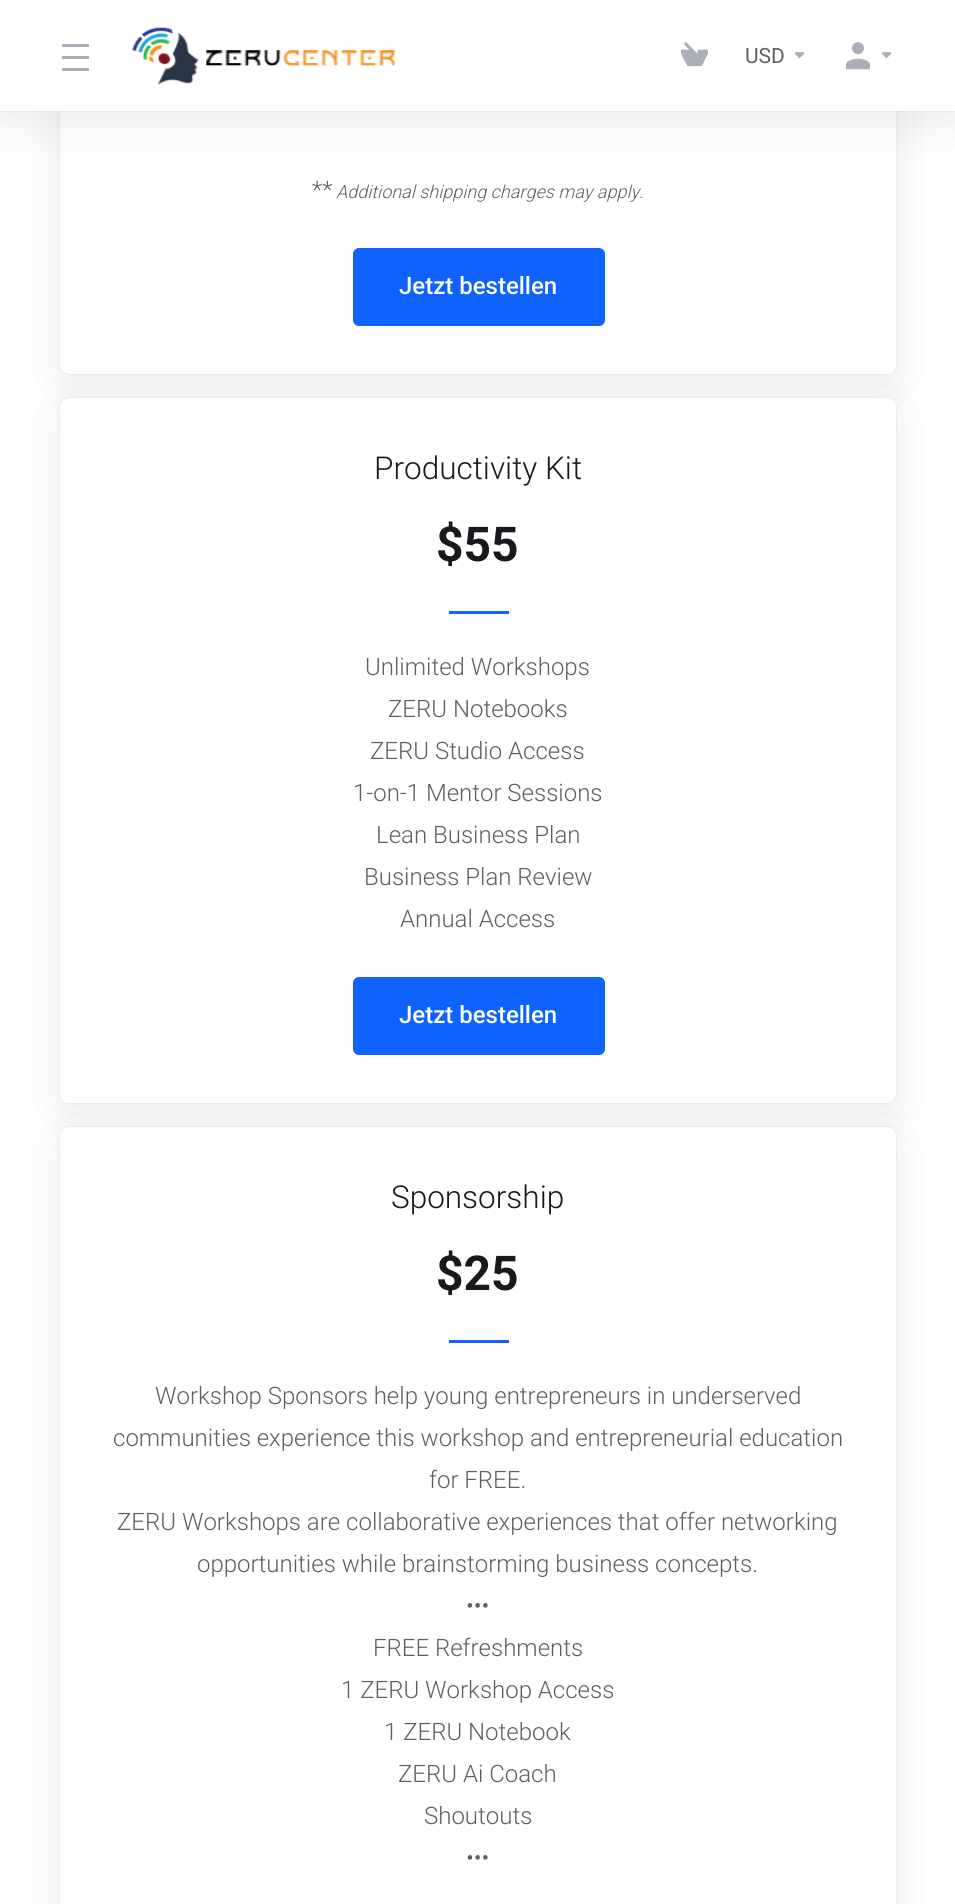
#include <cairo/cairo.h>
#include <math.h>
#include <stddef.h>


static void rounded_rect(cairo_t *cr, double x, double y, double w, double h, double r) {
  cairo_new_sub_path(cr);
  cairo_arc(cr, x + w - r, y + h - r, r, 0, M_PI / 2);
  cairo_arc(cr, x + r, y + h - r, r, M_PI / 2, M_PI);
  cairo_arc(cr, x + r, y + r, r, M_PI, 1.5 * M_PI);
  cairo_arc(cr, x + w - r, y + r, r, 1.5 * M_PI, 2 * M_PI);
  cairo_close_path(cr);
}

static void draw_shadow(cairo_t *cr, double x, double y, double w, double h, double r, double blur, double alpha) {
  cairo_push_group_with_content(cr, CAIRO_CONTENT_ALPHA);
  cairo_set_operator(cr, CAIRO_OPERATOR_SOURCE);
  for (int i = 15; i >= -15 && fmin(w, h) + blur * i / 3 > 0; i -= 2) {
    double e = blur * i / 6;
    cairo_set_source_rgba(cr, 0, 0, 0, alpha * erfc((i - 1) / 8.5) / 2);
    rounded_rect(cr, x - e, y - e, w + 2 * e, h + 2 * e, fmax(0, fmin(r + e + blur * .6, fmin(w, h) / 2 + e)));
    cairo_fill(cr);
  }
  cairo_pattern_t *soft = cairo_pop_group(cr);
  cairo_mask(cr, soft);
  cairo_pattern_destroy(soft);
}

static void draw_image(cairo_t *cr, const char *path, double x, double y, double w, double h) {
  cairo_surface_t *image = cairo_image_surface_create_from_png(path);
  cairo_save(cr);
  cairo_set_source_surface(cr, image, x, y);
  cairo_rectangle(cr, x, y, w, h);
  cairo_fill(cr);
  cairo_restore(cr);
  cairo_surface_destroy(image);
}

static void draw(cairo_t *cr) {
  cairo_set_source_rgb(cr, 1, 1, 1);
  cairo_paint(cr);
  cairo_set_source_rgb(cr, 0, 0, 0);
  draw_shadow(cr, 60, -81, 836, 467, 9, 24, 0.08);
  draw_shadow(cr, 60, -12, 836, 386, 9, 1, 0.12);
  cairo_set_source_rgb(cr, 1, 1, 1);
  rounded_rect(cr, 60, -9, 836, 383, 9);
  cairo_fill(cr);
  cairo_set_source_rgb(cr, 0, 0, 0);
  draw_shadow(cr, 0, 12, 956, 111, 0, 24, 0.08);
  draw_shadow(cr, 0, 0, 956, 111, 0, 1, 0.12);
  cairo_set_source_rgb(cr, 1, 1, 1);
  cairo_rectangle(cr, 0, 0, 955, 111);
  cairo_fill(cr);
  cairo_set_source_rgb(cr, 172 / 255.0, 175 / 255.0, 185 / 255.0);
  cairo_rectangle(cr, 62, 44, 27, 3);
  cairo_fill(cr);
  cairo_rectangle(cr, 62, 56, 27, 3);
  cairo_fill(cr);
  cairo_rectangle(cr, 62, 68, 27, 3);
  cairo_fill(cr);
  draw_image(cr, "images/1.png", 132, 27, 263, 58);
  draw_image(cr, "images/2.png", 681, 42, 27, 25);
  draw_image(cr, "images/3.png", 795, 52, 9, 7);
  draw_image(cr, "images/4.png", 846, 42, 24, 28);
  draw_image(cr, "images/3.png", 882, 52, 9, 7);
  cairo_set_source_rgb(cr, 16 / 255.0, 98 / 255.0, 254 / 255.0);
  rounded_rect(cr, 354, 249, 250, 76, 5);
  cairo_fill_preserve(cr);
  cairo_stroke(cr);
  cairo_set_source_rgb(cr, 0, 0, 0);
  draw_shadow(cr, 60, 410, 836, 705, 9, 24, 0.08);
  draw_shadow(cr, 60, 398, 836, 705, 9, 1, 0.12);
  cairo_set_source_rgb(cr, 1, 1, 1);
  rounded_rect(cr, 60, 398, 836, 705, 9);
  cairo_fill(cr);
  cairo_set_source_rgb(cr, 16 / 255.0, 98 / 255.0, 254 / 255.0);
  cairo_rectangle(cr, 449, 611, 60, 3);
  cairo_fill(cr);
  rounded_rect(cr, 354, 978, 250, 76, 5);
  cairo_fill_preserve(cr);
  cairo_stroke(cr);
  cairo_set_source_rgb(cr, 0, 0, 0);
  draw_shadow(cr, 60, 1139, 836, 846, 9, 24, 0.08);
  draw_shadow(cr, 60, 1127, 836, 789, 9, 1, 0.12);
  cairo_set_source_rgb(cr, 1, 1, 1);
  rounded_rect(cr, 60, 1127, 836, 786, 9);
  cairo_fill(cr);
  cairo_set_source_rgb(cr, 16 / 255.0, 98 / 255.0, 254 / 255.0);
  cairo_rectangle(cr, 449, 1340, 60, 3);
  cairo_fill(cr);
  cairo_select_font_face(cr, "Roboto", CAIRO_FONT_SLANT_NORMAL, CAIRO_FONT_WEIGHT_NORMAL);
  cairo_set_font_size(cr, 21);
  cairo_set_source_rgb(cr, 93 / 255.0, 95 / 255.0, 98 / 255.0);
  cairo_move_to(cr, 745, 63);
  cairo_show_text(cr, "USD");
  cairo_select_font_face(cr, "Roboto Light", CAIRO_FONT_SLANT_NORMAL, CAIRO_FONT_WEIGHT_NORMAL);
  cairo_set_font_size(cr, 24);
  cairo_move_to(cr, 312, 198);
  cairo_show_text(cr, "**");
  cairo_select_font_face(cr, "Roboto Light", CAIRO_FONT_SLANT_ITALIC, CAIRO_FONT_WEIGHT_NORMAL);
  cairo_set_font_size(cr, 18);
  cairo_move_to(cr, 336, 198);
  cairo_show_text(cr, "Additional shipping charges may apply.");
  cairo_select_font_face(cr, "Roboto Medium", CAIRO_FONT_SLANT_NORMAL, CAIRO_FONT_WEIGHT_NORMAL);
  cairo_set_font_size(cr, 24);
  cairo_set_source_rgb(cr, 1, 1, 1);
  cairo_move_to(cr, 399, 294);
  cairo_show_text(cr, "Jetzt bestellen");
  cairo_select_font_face(cr, "Roboto Light", CAIRO_FONT_SLANT_NORMAL, CAIRO_FONT_WEIGHT_NORMAL);
  cairo_set_font_size(cr, 31.5);
  cairo_set_source_rgb(cr, 23 / 255.0, 25 / 255.0, 28 / 255.0);
  cairo_move_to(cr, 374, 479);
  cairo_show_text(cr, "Productivity Kit");
  cairo_select_font_face(cr, "Roboto", CAIRO_FONT_SLANT_NORMAL, CAIRO_FONT_WEIGHT_BOLD);
  cairo_set_font_size(cr, 48);
  cairo_move_to(cr, 436, 561);
  cairo_show_text(cr, "$55");
  cairo_select_font_face(cr, "Roboto Light", CAIRO_FONT_SLANT_NORMAL, CAIRO_FONT_WEIGHT_NORMAL);
  cairo_set_font_size(cr, 24);
  cairo_set_source_rgb(cr, 93 / 255.0, 95 / 255.0, 98 / 255.0);
  cairo_move_to(cr, 365, 675);
  cairo_show_text(cr, "Unlimited Workshops");
  cairo_move_to(cr, 388, 717);
  cairo_show_text(cr, "ZERU Notebooks");
  cairo_move_to(cr, 370, 759);
  cairo_show_text(cr, "ZERU Studio Access");
  cairo_move_to(cr, 353, 801);
  cairo_show_text(cr, "1-on-1 Mentor Sessions");
  cairo_move_to(cr, 376, 843);
  cairo_show_text(cr, "Lean Business Plan");
  cairo_move_to(cr, 364, 885);
  cairo_show_text(cr, "Business Plan Review");
  cairo_move_to(cr, 400, 927);
  cairo_show_text(cr, "Annual Access");
  cairo_select_font_face(cr, "Roboto Medium", CAIRO_FONT_SLANT_NORMAL, CAIRO_FONT_WEIGHT_NORMAL);
  cairo_set_source_rgb(cr, 1, 1, 1);
  cairo_move_to(cr, 399, 1023);
  cairo_show_text(cr, "Jetzt bestellen");
  cairo_select_font_face(cr, "Roboto Light", CAIRO_FONT_SLANT_NORMAL, CAIRO_FONT_WEIGHT_NORMAL);
  cairo_set_font_size(cr, 31.5);
  cairo_set_source_rgb(cr, 23 / 255.0, 25 / 255.0, 28 / 255.0);
  cairo_move_to(cr, 391, 1208);
  cairo_show_text(cr, "Sponsorship");
  cairo_select_font_face(cr, "Roboto", CAIRO_FONT_SLANT_NORMAL, CAIRO_FONT_WEIGHT_BOLD);
  cairo_set_font_size(cr, 48);
  cairo_move_to(cr, 436, 1290);
  cairo_show_text(cr, "$25");
  cairo_select_font_face(cr, "Roboto Light", CAIRO_FONT_SLANT_NORMAL, CAIRO_FONT_WEIGHT_NORMAL);
  cairo_set_font_size(cr, 24);
  cairo_set_source_rgb(cr, 93 / 255.0, 95 / 255.0, 98 / 255.0);
  cairo_move_to(cr, 155, 1404);
  cairo_show_text(cr, "Workshop Sponsors help young entrepreneurs in underserved");
  cairo_move_to(cr, 113, 1446);
  cairo_show_text(cr, "communities experience this workshop and entrepreneurial education");
  cairo_move_to(cr, 429, 1488);
  cairo_show_text(cr, "for FREE.");
  cairo_move_to(cr, 117, 1530);
  cairo_show_text(cr, "ZERU Workshops are collaborative experiences that offer networking");
  cairo_move_to(cr, 197, 1572);
  cairo_show_text(cr, "opportunities while brainstorming business concepts.");
  cairo_move_to(cr, 466, 1614);
  cairo_show_text(cr, "•••");
  cairo_move_to(cr, 373, 1656);
  cairo_show_text(cr, "FREE Refreshments");
  cairo_move_to(cr, 341, 1698);
  cairo_show_text(cr, "1 ZERU Workshop Access");
  cairo_move_to(cr, 384, 1740);
  cairo_show_text(cr, "1 ZERU Notebook");
  cairo_move_to(cr, 398, 1782);
  cairo_show_text(cr, "ZERU Ai Coach");
  cairo_move_to(cr, 424, 1824);
  cairo_show_text(cr, "Shoutouts");
  cairo_move_to(cr, 466, 1866);
  cairo_show_text(cr, "•••");
}

int main(void) {
  cairo_surface_t *surface = cairo_image_surface_create(CAIRO_FORMAT_RGB24, 955, 1904);
  cairo_t *cr = cairo_create(surface);
  cairo_font_options_t *options = cairo_font_options_create();
  cairo_font_options_set_hint_metrics(options, CAIRO_HINT_METRICS_OFF);
  cairo_font_options_set_hint_style(options, CAIRO_HINT_STYLE_NONE);
  cairo_set_font_options(cr, options);
  cairo_set_miter_limit(cr, 4);
  draw(cr);
  cairo_surface_write_to_png(surface, "out.png");
  cairo_font_options_destroy(options);
  cairo_destroy(cr);
  cairo_surface_destroy(surface);
  return 0;
}
